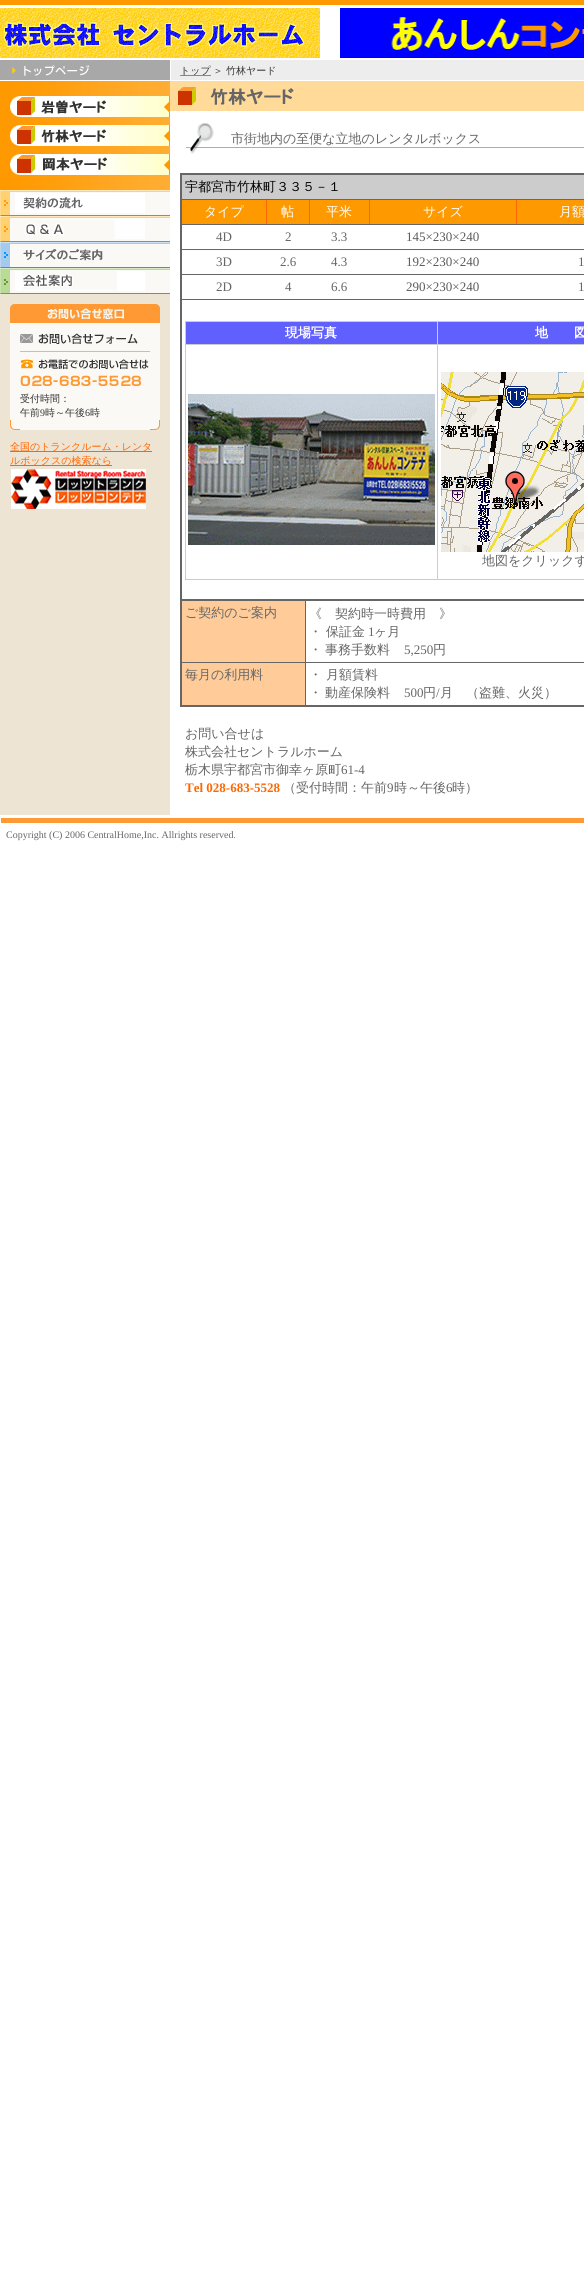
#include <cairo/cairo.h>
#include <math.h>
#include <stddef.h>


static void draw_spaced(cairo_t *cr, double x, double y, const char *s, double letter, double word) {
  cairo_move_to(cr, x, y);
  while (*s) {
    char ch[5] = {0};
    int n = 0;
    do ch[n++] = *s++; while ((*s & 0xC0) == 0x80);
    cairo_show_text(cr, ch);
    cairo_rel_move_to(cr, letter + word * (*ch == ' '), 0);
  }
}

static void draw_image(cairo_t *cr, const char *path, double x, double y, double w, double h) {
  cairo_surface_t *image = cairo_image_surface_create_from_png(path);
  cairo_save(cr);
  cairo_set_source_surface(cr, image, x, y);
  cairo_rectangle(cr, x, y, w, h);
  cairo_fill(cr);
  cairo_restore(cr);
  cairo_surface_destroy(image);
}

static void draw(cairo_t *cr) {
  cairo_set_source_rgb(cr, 1, 1, 1);
  cairo_paint(cr);
  cairo_set_source_rgb(cr, 1, 153 / 255.0, 0);
  cairo_rectangle(cr, 0, 0, 584, 5);
  cairo_fill(cr);
  draw_image(cr, "images/1.png", 0, 8, 320, 50);
  draw_image(cr, "images/2.png", 340, 8, 244, 50);
  cairo_set_source_rgb(cr, 238 / 255.0, 228 / 255.0, 212 / 255.0);
  cairo_rectangle(cr, 0, 294, 170, 521);
  cairo_fill(cr);
  draw_image(cr, "images/3.png", 0, 60, 170, 21);
  draw_image(cr, "images/4.png", 0, 81, 170, 109);
  draw_image(cr, "images/5.png", 10, 96, 160, 21);
  draw_image(cr, "images/6.png", 10, 125, 160, 21);
  draw_image(cr, "images/7.png", 10, 154, 160, 21);
  draw_image(cr, "images/8.png", 0, 190, 15, 26);
  draw_image(cr, "images/9.png", 15, 190, 155, 26);
  draw_image(cr, "images/10.png", 15, 193, 130, 20);
  draw_image(cr, "images/8.png", 0, 216, 15, 26);
  draw_image(cr, "images/9.png", 15, 216, 155, 26);
  draw_image(cr, "images/11.png", 16, 219, 129, 20);
  draw_image(cr, "images/12.png", 0, 242, 15, 26);
  draw_image(cr, "images/13.png", 15, 242, 155, 26);
  draw_image(cr, "images/14.png", 23, 249, 80, 12);
  draw_image(cr, "images/15.png", 0, 268, 15, 26);
  draw_image(cr, "images/16.png", 15, 268, 155, 26);
  draw_image(cr, "images/17.png", 15, 271, 130, 20);
  draw_image(cr, "images/18.png", 10, 304, 10, 19);
  draw_image(cr, "images/19.png", 20, 304, 130, 19);
  draw_image(cr, "images/20.png", 150, 304, 10, 19);
  cairo_set_source_rgb(cr, 251 / 255.0, 249 / 255.0, 246 / 255.0);
  cairo_rectangle(cr, 10, 323, 150, 97);
  cairo_fill(cr);
  draw_image(cr, "images/21.png", 20, 333, 118, 11);
  cairo_set_source_rgb(cr, 193 / 255.0, 192 / 255.0, 190 / 255.0);
  cairo_rectangle(cr, 20, 351, 130, 1);
  cairo_fill(cr);
  draw_image(cr, "images/22.png", 20, 359, 129, 10);
  draw_image(cr, "images/23.png", 20, 375, 10, 11);
  draw_image(cr, "images/24.png", 32, 375, 10, 11);
  draw_image(cr, "images/25.png", 42, 375, 10, 11);
  draw_image(cr, "images/26.png", 53, 380, 5, 2);
  draw_image(cr, "images/27.png", 59, 375, 10, 11);
  draw_image(cr, "images/25.png", 70, 375, 10, 11);
  draw_image(cr, "images/28.png", 81, 375, 10, 11);
  draw_image(cr, "images/26.png", 92, 380, 5, 2);
  draw_image(cr, "images/29.png", 98, 375, 10, 11);
  draw_image(cr, "images/29.png", 109, 375, 10, 11);
  draw_image(cr, "images/24.png", 121, 375, 10, 11);
  draw_image(cr, "images/25.png", 131, 375, 10, 11);
  draw_image(cr, "images/30.png", 10, 420, 10, 10);
  cairo_set_source_rgb(cr, 251 / 255.0, 249 / 255.0, 246 / 255.0);
  cairo_rectangle(cr, 20, 420, 130, 10);
  cairo_fill(cr);
  draw_image(cr, "images/31.png", 150, 420, 10, 10);
  cairo_set_source_rgb(cr, 1, 102 / 255.0, 0);
  cairo_rectangle(cr, 10, 451, 142, 1);
  cairo_fill(cr);
  cairo_rectangle(cr, 10, 465, 102, 1);
  cairo_fill(cr);
  draw_image(cr, "images/32.png", 11, 469, 135, 40);
  cairo_set_source_rgb(cr, 237 / 255.0, 237 / 255.0, 237 / 255.0);
  cairo_rectangle(cr, 171, 60, 413, 20);
  cairo_fill(cr);
  cairo_set_source_rgb(cr, 1, 102 / 255.0, 0);
  cairo_rectangle(cr, 180, 75, 31, 1);
  cairo_fill(cr);
  cairo_set_source_rgb(cr, 1, 218 / 255.0, 153 / 255.0);
  cairo_rectangle(cr, 170, 81, 414, 30);
  cairo_fill(cr);
  draw_image(cr, "images/33.png", 178, 87, 116, 18);
  draw_image(cr, "images/34.png", 186, 122, 29, 32);
  cairo_set_source_rgb(cr, 1, 153 / 255.0, 51 / 255.0);
  cairo_rectangle(cr, 215, 147, 369, 1);
  cairo_fill(cr);
  cairo_set_source_rgb(cr, 102 / 255.0, 102 / 255.0, 102 / 255.0);
  cairo_rectangle(cr, 180, 173, 404, 534);
  cairo_fill(cr);
  cairo_set_source_rgb(cr, 204 / 255.0, 204 / 255.0, 204 / 255.0);
  cairo_rectangle(cr, 182, 175, 402, 24);
  cairo_fill(cr);
  cairo_set_source_rgb(cr, 1, 102 / 255.0, 0);
  cairo_rectangle(cr, 266, 200, 251, 24);
  cairo_fill(cr);
  cairo_set_source_rgb(cr, 1, 153 / 255.0, 0);
  cairo_rectangle(cr, 182, 200, 84, 24);
  cairo_fill(cr);
  cairo_rectangle(cr, 267, 200, 42, 24);
  cairo_fill(cr);
  cairo_rectangle(cr, 310, 200, 59, 24);
  cairo_fill(cr);
  cairo_rectangle(cr, 370, 200, 146, 24);
  cairo_fill(cr);
  cairo_rectangle(cr, 517, 200, 67, 24);
  cairo_fill(cr);
  cairo_set_source_rgb(cr, 1, 1, 1);
  cairo_rectangle(cr, 182, 225, 402, 24);
  cairo_fill(cr);
  cairo_rectangle(cr, 182, 250, 402, 24);
  cairo_fill(cr);
  cairo_rectangle(cr, 182, 275, 402, 24);
  cairo_fill(cr);
  cairo_rectangle(cr, 182, 300, 402, 299);
  cairo_fill(cr);
  cairo_set_source_rgb(cr, 204 / 255.0, 204 / 255.0, 204 / 255.0);
  cairo_rectangle(cr, 185, 321, 399, 259);
  cairo_fill(cr);
  cairo_set_source_rgb(cr, 96 / 255.0, 96 / 255.0, 1);
  cairo_rectangle(cr, 186, 322, 251, 22);
  cairo_fill(cr);
  cairo_rectangle(cr, 438, 322, 146, 22);
  cairo_fill(cr);
  cairo_set_source_rgb(cr, 1, 1, 1);
  cairo_rectangle(cr, 186, 345, 251, 234);
  cairo_fill(cr);
  draw_image(cr, "images/35.png", 188, 394, 247, 151);
  cairo_rectangle(cr, 438, 345, 146, 234);
  cairo_fill(cr);
  draw_image(cr, "images/36.png", 441, 372, 143, 180);
  cairo_set_source_rgb(cr, 1, 204 / 255.0, 153 / 255.0);
  cairo_rectangle(cr, 182, 601, 123, 61);
  cairo_fill(cr);
  cairo_set_source_rgb(cr, 1, 1, 1);
  cairo_rectangle(cr, 306, 601, 278, 61);
  cairo_fill(cr);
  cairo_set_source_rgb(cr, 1, 204 / 255.0, 153 / 255.0);
  cairo_rectangle(cr, 182, 663, 123, 42);
  cairo_fill(cr);
  cairo_set_source_rgb(cr, 1, 1, 1);
  cairo_rectangle(cr, 306, 663, 278, 42);
  cairo_fill(cr);
  cairo_set_source_rgb(cr, 1, 153 / 255.0, 51 / 255.0);
  cairo_rectangle(cr, 1, 818, 583, 5);
  cairo_fill(cr);
  cairo_select_font_face(cr, "WenQuanYi Zen Hei Medium", CAIRO_FONT_SLANT_NORMAL, CAIRO_FONT_WEIGHT_NORMAL);
  cairo_set_font_size(cr, 10);
  cairo_set_source_rgb(cr, 51 / 255.0, 51 / 255.0, 51 / 255.0);
  cairo_move_to(cr, 20, 402);
  cairo_show_text(cr, "受付時間：");
  cairo_move_to(cr, 20, 416);
  cairo_show_text(cr, "午前");
  cairo_select_font_face(cr, "Liberation Serif", CAIRO_FONT_SLANT_NORMAL, CAIRO_FONT_WEIGHT_NORMAL);
  cairo_move_to(cr, 40, 416);
  cairo_show_text(cr, "9");
  cairo_select_font_face(cr, "WenQuanYi Zen Hei Medium", CAIRO_FONT_SLANT_NORMAL, CAIRO_FONT_WEIGHT_NORMAL);
  cairo_move_to(cr, 45, 416);
  cairo_show_text(cr, "時～午後");
  cairo_select_font_face(cr, "Liberation Serif", CAIRO_FONT_SLANT_NORMAL, CAIRO_FONT_WEIGHT_NORMAL);
  cairo_move_to(cr, 85, 416);
  cairo_show_text(cr, "6");
  cairo_select_font_face(cr, "WenQuanYi Zen Hei Medium", CAIRO_FONT_SLANT_NORMAL, CAIRO_FONT_WEIGHT_NORMAL);
  cairo_move_to(cr, 90, 416);
  cairo_show_text(cr, "時");
  cairo_set_source_rgb(cr, 1, 102 / 255.0, 0);
  cairo_move_to(cr, 10, 450);
  cairo_show_text(cr, "全国のトランクルーム・レンタ");
  cairo_move_to(cr, 10, 464);
  cairo_show_text(cr, "ルボックスの検索なら");
  cairo_set_source_rgb(cr, 51 / 255.0, 51 / 255.0, 51 / 255.0);
  cairo_move_to(cr, 180, 74);
  cairo_show_text(cr, "トップ");
  cairo_move_to(cr, 213, 74);
  cairo_show_text(cr, "＞ 竹林ヤード");
  cairo_set_font_size(cr, 13);
  cairo_set_source_rgb(cr, 102 / 255.0, 102 / 255.0, 102 / 255.0);
  cairo_move_to(cr, 231, 143);
  cairo_show_text(cr, "市街地内の至便な立地のレンタルボックス");
  cairo_set_source_rgb(cr, 0, 0, 0);
  cairo_move_to(cr, 185, 191);
  cairo_show_text(cr, "宇都宮市竹林町３３５－１");
  cairo_set_source_rgb(cr, 1, 1, 1);
  cairo_move_to(cr, 204, 216);
  cairo_show_text(cr, "タイプ");
  cairo_move_to(cr, 281, 216);
  cairo_show_text(cr, "帖");
  cairo_move_to(cr, 326, 216);
  cairo_show_text(cr, "平米");
  cairo_move_to(cr, 423, 216);
  cairo_show_text(cr, "サイズ");
  cairo_move_to(cr, 559, 216);
  cairo_show_text(cr, "月額");
  cairo_select_font_face(cr, "Liberation Serif", CAIRO_FONT_SLANT_NORMAL, CAIRO_FONT_WEIGHT_NORMAL);
  cairo_set_source_rgb(cr, 102 / 255.0, 102 / 255.0, 102 / 255.0);
  cairo_move_to(cr, 216, 241);
  cairo_show_text(cr, "4D");
  cairo_move_to(cr, 285, 241);
  cairo_show_text(cr, "2");
  cairo_move_to(cr, 331, 241);
  cairo_show_text(cr, "3.3");
  cairo_set_source_rgb(cr, 91 / 255.0, 91 / 255.0, 91 / 255.0);
  cairo_move_to(cr, 406, 241);
  cairo_show_text(cr, "145×230×240");
  cairo_set_source_rgb(cr, 102 / 255.0, 102 / 255.0, 102 / 255.0);
  cairo_move_to(cr, 216, 266);
  cairo_show_text(cr, "3D");
  cairo_move_to(cr, 280, 266);
  cairo_show_text(cr, "2.6");
  cairo_move_to(cr, 331, 266);
  cairo_show_text(cr, "4.3");
  cairo_set_source_rgb(cr, 91 / 255.0, 91 / 255.0, 91 / 255.0);
  cairo_move_to(cr, 406, 266);
  cairo_show_text(cr, "192×230×240");
  cairo_set_source_rgb(cr, 102 / 255.0, 102 / 255.0, 102 / 255.0);
  cairo_move_to(cr, 578, 266);
  cairo_show_text(cr, "1");
  cairo_move_to(cr, 216, 291);
  cairo_show_text(cr, "2D");
  cairo_move_to(cr, 285, 291);
  cairo_show_text(cr, "4");
  cairo_move_to(cr, 331, 291);
  cairo_show_text(cr, "6.6");
  cairo_set_source_rgb(cr, 91 / 255.0, 91 / 255.0, 91 / 255.0);
  cairo_move_to(cr, 406, 291);
  cairo_show_text(cr, "290×230×240");
  cairo_set_source_rgb(cr, 102 / 255.0, 102 / 255.0, 102 / 255.0);
  cairo_move_to(cr, 578, 291);
  cairo_show_text(cr, "1");
  cairo_select_font_face(cr, "WenQuanYi Zen Hei", CAIRO_FONT_SLANT_NORMAL, CAIRO_FONT_WEIGHT_BOLD);
  cairo_set_source_rgb(cr, 1, 1, 1);
  cairo_move_to(cr, 285, 337);
  cairo_show_text(cr, "現場写真");
  cairo_move_to(cr, 535, 337);
  cairo_show_text(cr, "地　　図");
  cairo_select_font_face(cr, "WenQuanYi Zen Hei Medium", CAIRO_FONT_SLANT_NORMAL, CAIRO_FONT_WEIGHT_NORMAL);
  cairo_set_source_rgb(cr, 102 / 255.0, 102 / 255.0, 102 / 255.0);
  cairo_move_to(cr, 482, 565);
  cairo_show_text(cr, "地図をクリックす");
  cairo_move_to(cr, 185, 617);
  cairo_show_text(cr, "ご契約のご案内");
  cairo_move_to(cr, 309, 618);
  cairo_show_text(cr, "《　契約時一時費用　》");
  cairo_move_to(cr, 309, 636);
  cairo_show_text(cr, "・ 保証金");
  cairo_select_font_face(cr, "Liberation Serif", CAIRO_FONT_SLANT_NORMAL, CAIRO_FONT_WEIGHT_NORMAL);
  cairo_move_to(cr, 368, 636);
  cairo_show_text(cr, "1");
  cairo_select_font_face(cr, "WenQuanYi Zen Hei Medium", CAIRO_FONT_SLANT_NORMAL, CAIRO_FONT_WEIGHT_NORMAL);
  cairo_move_to(cr, 374, 636);
  cairo_show_text(cr, "ヶ月");
  draw_spaced(cr, 309, 654, "・ 事務手数料", 0, -1);
  cairo_select_font_face(cr, "Liberation Serif", CAIRO_FONT_SLANT_NORMAL, CAIRO_FONT_WEIGHT_NORMAL);
  cairo_move_to(cr, 404, 654);
  cairo_show_text(cr, "5,250");
  cairo_select_font_face(cr, "WenQuanYi Zen Hei Medium", CAIRO_FONT_SLANT_NORMAL, CAIRO_FONT_WEIGHT_NORMAL);
  cairo_move_to(cr, 433, 654);
  cairo_show_text(cr, "円");
  cairo_move_to(cr, 185, 679);
  cairo_show_text(cr, "毎月の利用料");
  cairo_move_to(cr, 309, 679);
  cairo_show_text(cr, "・");
  cairo_move_to(cr, 326, 679);
  cairo_show_text(cr, "月額賃料");
  draw_spaced(cr, 309, 697, "・ 動産保険料", 0, -1);
  cairo_select_font_face(cr, "Liberation Serif", CAIRO_FONT_SLANT_NORMAL, CAIRO_FONT_WEIGHT_NORMAL);
  cairo_move_to(cr, 404, 697);
  cairo_show_text(cr, "500");
  cairo_select_font_face(cr, "WenQuanYi Zen Hei Medium", CAIRO_FONT_SLANT_NORMAL, CAIRO_FONT_WEIGHT_NORMAL);
  cairo_move_to(cr, 423, 697);
  cairo_show_text(cr, "円 月　（盗難、火災）");
  cairo_select_font_face(cr, "Liberation Serif", CAIRO_FONT_SLANT_NORMAL, CAIRO_FONT_WEIGHT_NORMAL);
  cairo_move_to(cr, 436, 697);
  cairo_show_text(cr, "/");
  cairo_select_font_face(cr, "WenQuanYi Zen Hei Medium", CAIRO_FONT_SLANT_NORMAL, CAIRO_FONT_WEIGHT_NORMAL);
  cairo_move_to(cr, 185, 738);
  cairo_show_text(cr, "お問い合せは");
  cairo_move_to(cr, 185, 756);
  cairo_show_text(cr, "株式会社セントラルホーム");
  cairo_move_to(cr, 185, 774);
  cairo_show_text(cr, "栃木県宇都宮市御幸ヶ原町");
  cairo_select_font_face(cr, "Liberation Serif", CAIRO_FONT_SLANT_NORMAL, CAIRO_FONT_WEIGHT_NORMAL);
  cairo_move_to(cr, 341, 774);
  cairo_show_text(cr, "61-4");
  cairo_select_font_face(cr, "Liberation Serif", CAIRO_FONT_SLANT_NORMAL, CAIRO_FONT_WEIGHT_BOLD);
  cairo_set_source_rgb(cr, 1, 102 / 255.0, 0);
  cairo_move_to(cr, 185, 792);
  cairo_show_text(cr, "Tel 028-683-5528");
  cairo_select_font_face(cr, "WenQuanYi Zen Hei Medium", CAIRO_FONT_SLANT_NORMAL, CAIRO_FONT_WEIGHT_NORMAL);
  cairo_set_source_rgb(cr, 102 / 255.0, 102 / 255.0, 102 / 255.0);
  cairo_move_to(cr, 283, 792);
  cairo_show_text(cr, "（受付時間：午前");
  cairo_select_font_face(cr, "Liberation Serif", CAIRO_FONT_SLANT_NORMAL, CAIRO_FONT_WEIGHT_NORMAL);
  cairo_move_to(cr, 387, 792);
  cairo_show_text(cr, "9");
  cairo_select_font_face(cr, "WenQuanYi Zen Hei Medium", CAIRO_FONT_SLANT_NORMAL, CAIRO_FONT_WEIGHT_NORMAL);
  cairo_move_to(cr, 394, 792);
  cairo_show_text(cr, "時～午後");
  cairo_select_font_face(cr, "Liberation Serif", CAIRO_FONT_SLANT_NORMAL, CAIRO_FONT_WEIGHT_NORMAL);
  cairo_move_to(cr, 446, 792);
  cairo_show_text(cr, "6");
  cairo_select_font_face(cr, "WenQuanYi Zen Hei Medium", CAIRO_FONT_SLANT_NORMAL, CAIRO_FONT_WEIGHT_NORMAL);
  cairo_move_to(cr, 452, 792);
  cairo_show_text(cr, "時）");
  cairo_select_font_face(cr, "Liberation Serif", CAIRO_FONT_SLANT_NORMAL, CAIRO_FONT_WEIGHT_NORMAL);
  cairo_set_font_size(cr, 10);
  cairo_move_to(cr, 6, 838);
  cairo_show_text(cr, "Copyright (C) 2006 CentralHome,Inc. Allrights reserved.");
}

int main(void) {
  cairo_surface_t *surface = cairo_image_surface_create(CAIRO_FORMAT_RGB24, 584, 2283);
  cairo_t *cr = cairo_create(surface);
  cairo_font_options_t *options = cairo_font_options_create();
  cairo_font_options_set_hint_metrics(options, CAIRO_HINT_METRICS_OFF);
  cairo_font_options_set_hint_style(options, CAIRO_HINT_STYLE_NONE);
  cairo_set_font_options(cr, options);
  cairo_set_miter_limit(cr, 4);
  draw(cr);
  cairo_surface_write_to_png(surface, "out.png");
  cairo_font_options_destroy(options);
  cairo_destroy(cr);
  cairo_surface_destroy(surface);
  return 0;
}
